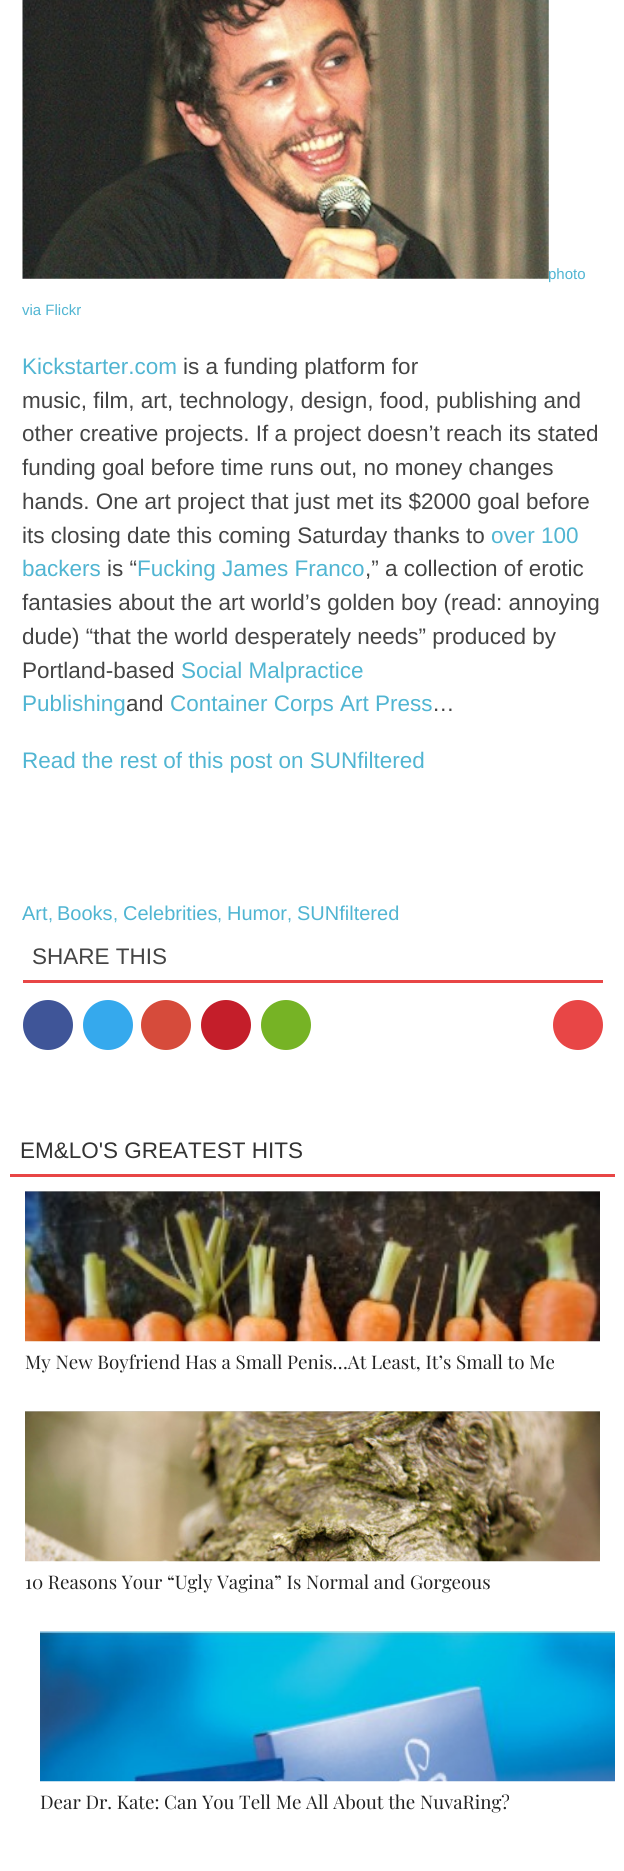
#include <cairo/cairo.h>
#include <math.h>
#include <stddef.h>


static void draw_image(cairo_t *cr, const char *path, double x, double y, double w, double h) {
  cairo_surface_t *image = cairo_image_surface_create_from_png(path);
  cairo_save(cr);
  cairo_set_source_surface(cr, image, x, y);
  cairo_rectangle(cr, x, y, w, h);
  cairo_fill(cr);
  cairo_restore(cr);
  cairo_surface_destroy(image);
}

static void draw(cairo_t *cr) {
  cairo_set_source_rgb(cr, 1, 1, 1);
  cairo_paint(cr);
  draw_image(cr, "images/1.png", 22, 0, 527, 279);
  cairo_set_source_rgb(cr, 232 / 255.0, 70 / 255.0, 70 / 255.0);
  cairo_rectangle(cr, 23, 980, 580, 3);
  cairo_fill(cr);
  cairo_set_source_rgb(cr, 63 / 255.0, 85 / 255.0, 152 / 255.0);
  cairo_arc(cr, 48, 1025, 25, 0, 2 * M_PI);
  cairo_fill(cr);
  cairo_set_source_rgb(cr, 53 / 255.0, 169 / 255.0, 237 / 255.0);
  cairo_arc(cr, 108, 1025, 25, 0, 2 * M_PI);
  cairo_fill(cr);
  cairo_set_source_rgb(cr, 214 / 255.0, 75 / 255.0, 59 / 255.0);
  cairo_arc(cr, 166, 1025, 25, 0, 2 * M_PI);
  cairo_fill(cr);
  cairo_set_source_rgb(cr, 196 / 255.0, 30 / 255.0, 42 / 255.0);
  cairo_arc(cr, 226, 1025, 25, 0, 2 * M_PI);
  cairo_fill(cr);
  cairo_set_source_rgb(cr, 118 / 255.0, 179 / 255.0, 37 / 255.0);
  cairo_arc(cr, 286, 1025, 25, 0, 2 * M_PI);
  cairo_fill(cr);
  cairo_set_source_rgb(cr, 232 / 255.0, 70 / 255.0, 70 / 255.0);
  cairo_arc(cr, 578, 1025, 25, 0, 2 * M_PI);
  cairo_fill(cr);
  cairo_rectangle(cr, 10, 1174, 605, 3);
  cairo_fill(cr);
  cairo_set_source_rgb(cr, 204 / 255.0, 204 / 255.0, 204 / 255.0);
  cairo_rectangle(cr, 25, 1191, 575, 1);
  cairo_fill(cr);
  draw_image(cr, "images/2.png", 25, 1191, 575, 151);
  cairo_rectangle(cr, 25, 1411, 575, 1);
  cairo_fill(cr);
  draw_image(cr, "images/3.png", 25, 1411, 575, 151);
  cairo_rectangle(cr, 40, 1631, 575, 1);
  cairo_fill(cr);
  draw_image(cr, "images/4.png", 40, 1631, 575, 151);
  cairo_select_font_face(cr, "Liberation Sans", CAIRO_FONT_SLANT_NORMAL, CAIRO_FONT_WEIGHT_NORMAL);
  cairo_set_font_size(cr, 15);
  cairo_set_source_rgb(cr, 80 / 255.0, 181 / 255.0, 210 / 255.0);
  cairo_move_to(cr, 548, 279);
  cairo_show_text(cr, "photo");
  cairo_move_to(cr, 22, 315);
  cairo_show_text(cr, "via Flickr");
  cairo_set_font_size(cr, 22.5);
  cairo_move_to(cr, 22, 374);
  cairo_show_text(cr, "Kickstarter.com");
  cairo_set_source_rgb(cr, 68 / 255.0, 68 / 255.0, 68 / 255.0);
  cairo_move_to(cr, 183, 374);
  cairo_show_text(cr, "is a funding platform for");
  cairo_move_to(cr, 22, 408);
  cairo_show_text(cr, "music, film, art, technology, design, food, publishing and");
  cairo_move_to(cr, 22, 441);
  cairo_show_text(cr, "other creative projects. If a project doesn’t reach its stated");
  cairo_move_to(cr, 22, 475);
  cairo_show_text(cr, "funding goal before time runs out, no money changes");
  cairo_move_to(cr, 22, 509);
  cairo_show_text(cr, "hands. One art project that just met its $2000 goal before");
  cairo_move_to(cr, 22, 543);
  cairo_show_text(cr, "its closing date this coming Saturday thanks to");
  cairo_set_source_rgb(cr, 80 / 255.0, 181 / 255.0, 210 / 255.0);
  cairo_move_to(cr, 491, 543);
  cairo_show_text(cr, "over 100");
  cairo_move_to(cr, 22, 576);
  cairo_show_text(cr, "backers");
  cairo_set_source_rgb(cr, 68 / 255.0, 68 / 255.0, 68 / 255.0);
  cairo_move_to(cr, 107, 576);
  cairo_show_text(cr, "is “");
  cairo_set_source_rgb(cr, 80 / 255.0, 181 / 255.0, 210 / 255.0);
  cairo_move_to(cr, 137, 576);
  cairo_show_text(cr, "Fucking James Franco");
  cairo_set_source_rgb(cr, 68 / 255.0, 68 / 255.0, 68 / 255.0);
  cairo_move_to(cr, 365, 576);
  cairo_show_text(cr, ",” a collection of erotic");
  cairo_move_to(cr, 22, 610);
  cairo_show_text(cr, "fantasies about the art world’s golden boy (read: annoying");
  cairo_move_to(cr, 22, 644);
  cairo_show_text(cr, "dude) “that the world desperately needs” produced by");
  cairo_move_to(cr, 22, 678);
  cairo_show_text(cr, "Portland-based");
  cairo_set_source_rgb(cr, 80 / 255.0, 181 / 255.0, 210 / 255.0);
  cairo_move_to(cr, 181, 678);
  cairo_show_text(cr, "Social Malpractice");
  cairo_move_to(cr, 22, 711);
  cairo_show_text(cr, "Publishing");
  cairo_set_source_rgb(cr, 68 / 255.0, 68 / 255.0, 68 / 255.0);
  cairo_move_to(cr, 126, 711);
  cairo_show_text(cr, "and");
  cairo_set_source_rgb(cr, 80 / 255.0, 181 / 255.0, 210 / 255.0);
  cairo_move_to(cr, 170, 711);
  cairo_show_text(cr, "Container Corps Art Press");
  cairo_set_source_rgb(cr, 68 / 255.0, 68 / 255.0, 68 / 255.0);
  cairo_move_to(cr, 432, 711);
  cairo_show_text(cr, "…");
  cairo_set_source_rgb(cr, 80 / 255.0, 181 / 255.0, 210 / 255.0);
  cairo_move_to(cr, 22, 768);
  cairo_show_text(cr, "Read the rest of this post on SUNfiltered");
  cairo_set_font_size(cr, 20);
  cairo_move_to(cr, 22, 920);
  cairo_show_text(cr, "Art");
  cairo_set_font_size(cr, 18);
  cairo_move_to(cr, 48, 920);
  cairo_show_text(cr, ",");
  cairo_set_font_size(cr, 20);
  cairo_move_to(cr, 57, 920);
  cairo_show_text(cr, "Books");
  cairo_set_font_size(cr, 18);
  cairo_move_to(cr, 113, 920);
  cairo_show_text(cr, ",");
  cairo_set_font_size(cr, 20);
  cairo_move_to(cr, 123, 920);
  cairo_show_text(cr, "Celebrities");
  cairo_set_font_size(cr, 18);
  cairo_move_to(cr, 217, 920);
  cairo_show_text(cr, ",");
  cairo_set_font_size(cr, 20);
  cairo_move_to(cr, 227, 920);
  cairo_show_text(cr, "Humor");
  cairo_set_font_size(cr, 18);
  cairo_move_to(cr, 287, 920);
  cairo_show_text(cr, ",");
  cairo_set_font_size(cr, 20);
  cairo_move_to(cr, 297, 920);
  cairo_show_text(cr, "SUNfiltered");
  cairo_set_font_size(cr, 22.5);
  cairo_set_source_rgb(cr, 68 / 255.0, 68 / 255.0, 68 / 255.0);
  cairo_move_to(cr, 32, 964);
  cairo_show_text(cr, "SHARE THIS");
  cairo_set_source_rgb(cr, 51 / 255.0, 51 / 255.0, 51 / 255.0);
  cairo_move_to(cr, 20, 1158);
  cairo_show_text(cr, "EM&LO'S GREATEST HITS");
  cairo_select_font_face(cr, "Playfair Display", CAIRO_FONT_SLANT_NORMAL, CAIRO_FONT_WEIGHT_NORMAL);
  cairo_set_font_size(cr, 18.75);
  cairo_set_source_rgb(cr, 34 / 255.0, 34 / 255.0, 34 / 255.0);
  cairo_move_to(cr, 25, 1369);
  cairo_show_text(cr, "My New Boyfriend Has a Small Penis…At Least, It’s Small to Me");
  cairo_move_to(cr, 25, 1589);
  cairo_show_text(cr, "10 Reasons Your “Ugly Vagina” Is Normal and Gorgeous");
  cairo_move_to(cr, 40, 1809);
  cairo_show_text(cr, "Dear Dr. Kate: Can You Tell Me All About the NuvaRing?");
}

int main(void) {
  cairo_surface_t *surface = cairo_image_surface_create(CAIRO_FORMAT_RGB24, 624, 1871);
  cairo_t *cr = cairo_create(surface);
  cairo_font_options_t *options = cairo_font_options_create();
  cairo_font_options_set_hint_metrics(options, CAIRO_HINT_METRICS_OFF);
  cairo_font_options_set_hint_style(options, CAIRO_HINT_STYLE_NONE);
  cairo_set_font_options(cr, options);
  cairo_set_miter_limit(cr, 4);
  draw(cr);
  cairo_surface_write_to_png(surface, "out.png");
  cairo_font_options_destroy(options);
  cairo_destroy(cr);
  cairo_surface_destroy(surface);
  return 0;
}
